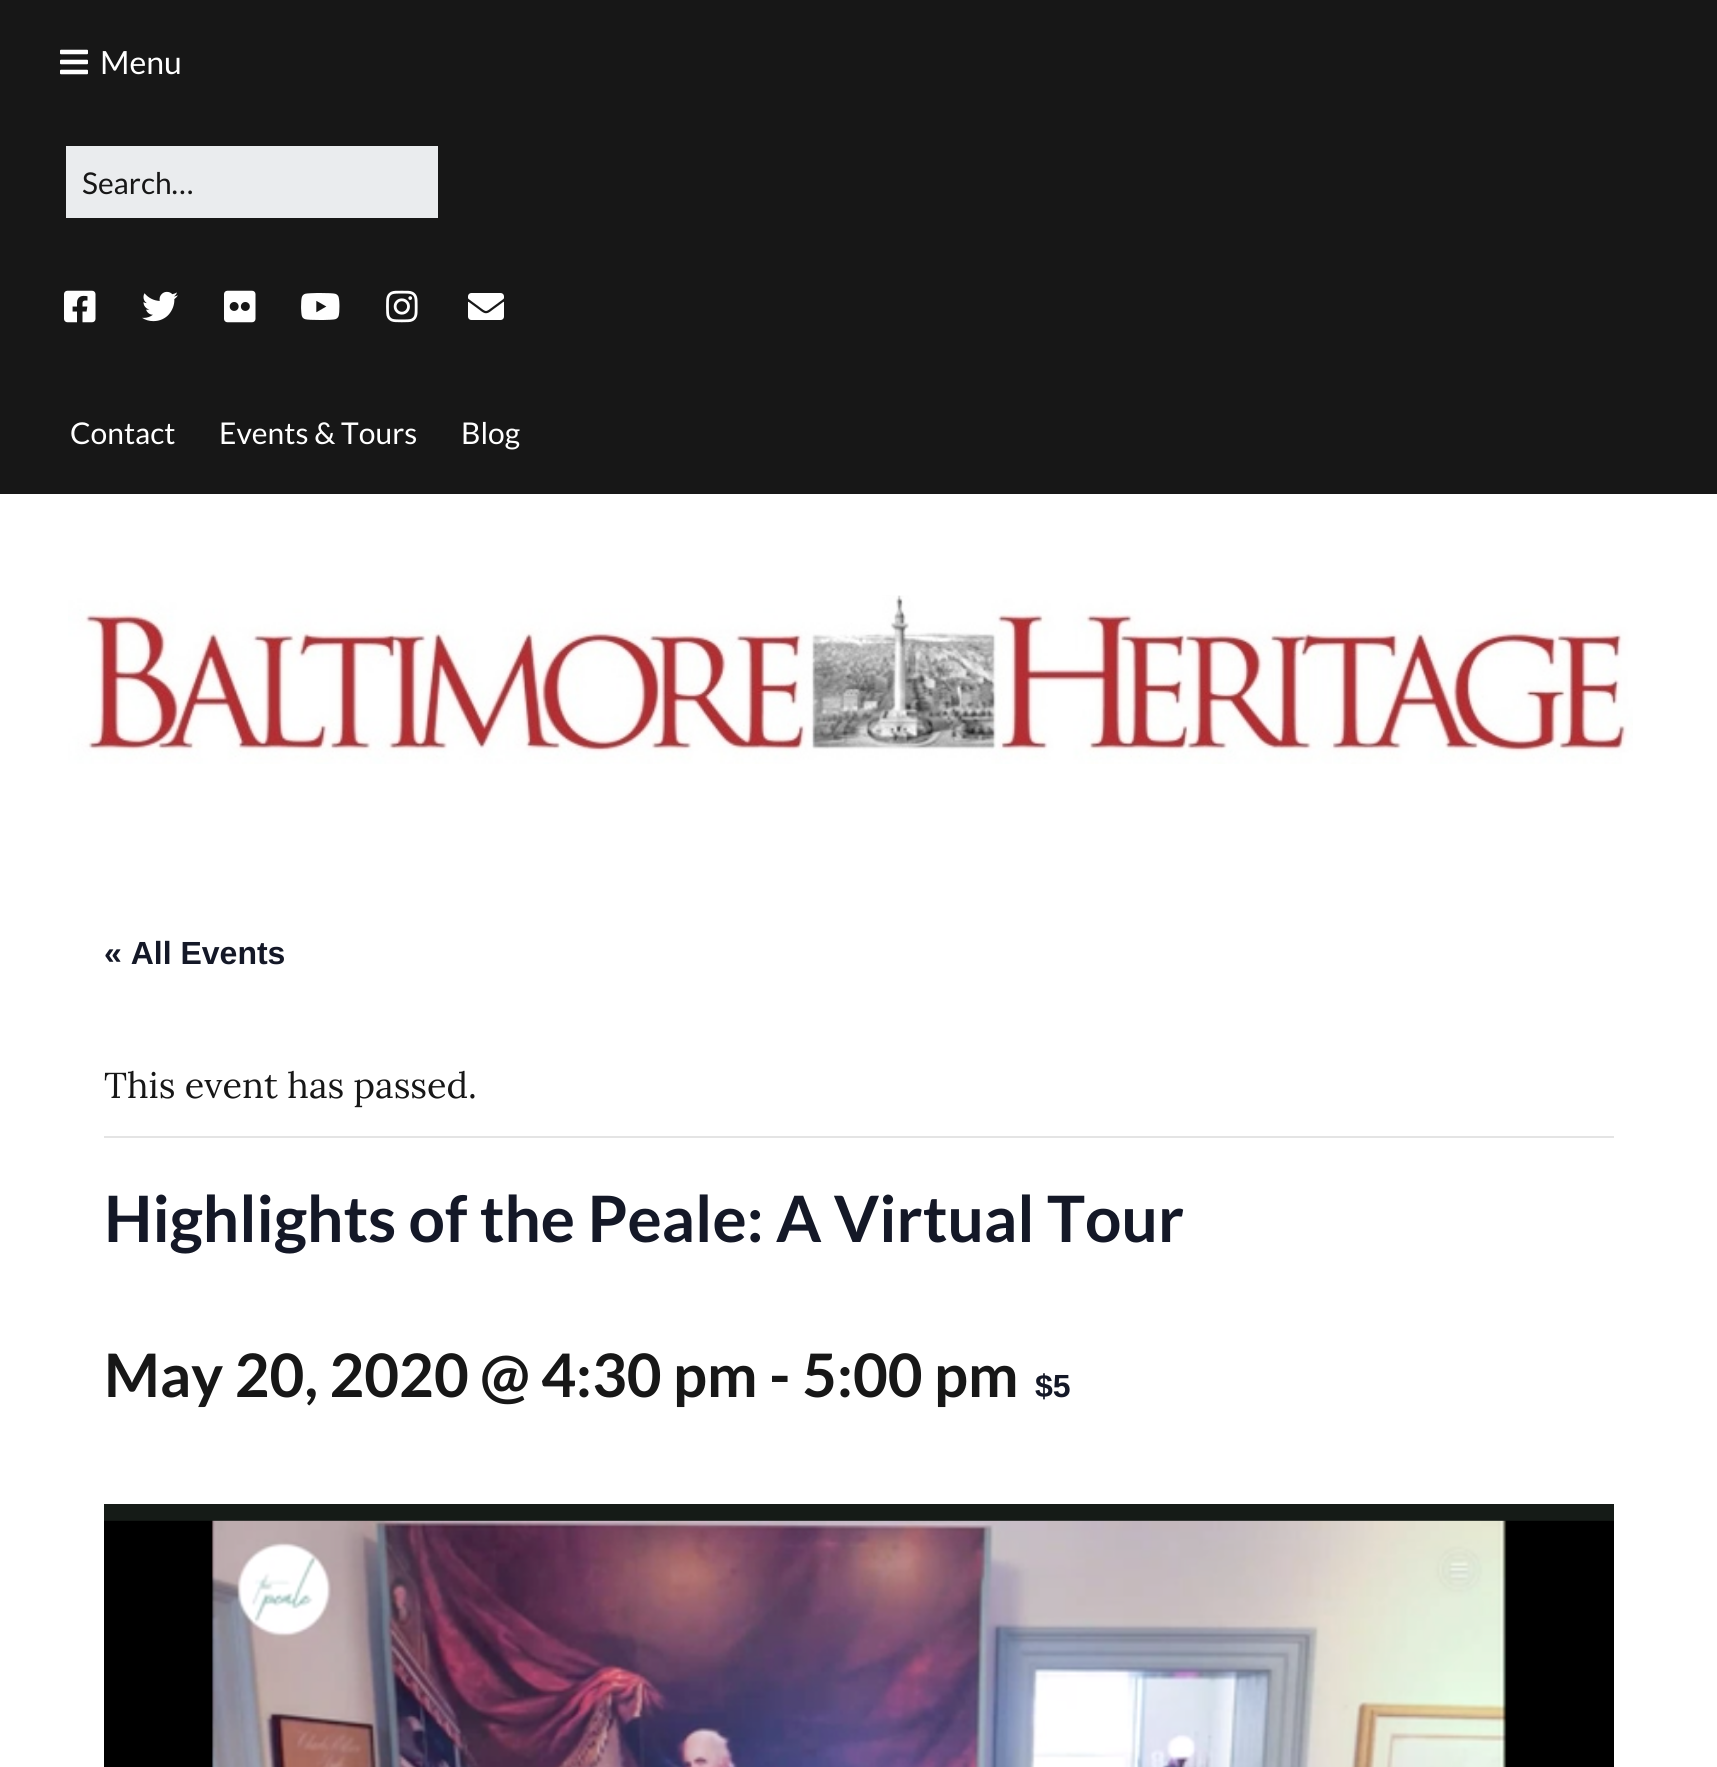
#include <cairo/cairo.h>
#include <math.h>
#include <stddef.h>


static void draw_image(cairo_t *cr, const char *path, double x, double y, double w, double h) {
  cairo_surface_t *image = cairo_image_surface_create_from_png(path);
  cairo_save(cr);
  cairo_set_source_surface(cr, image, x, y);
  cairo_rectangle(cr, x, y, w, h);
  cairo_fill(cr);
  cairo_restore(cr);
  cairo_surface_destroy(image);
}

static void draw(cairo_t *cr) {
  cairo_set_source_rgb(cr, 1, 1, 1);
  cairo_paint(cr);
  cairo_set_source_rgb(cr, 23 / 255.0, 23 / 255.0, 23 / 255.0);
  cairo_rectangle(cr, 0, 0, 1717, 494);
  cairo_fill(cr);
  draw_image(cr, "images/1.png", 60, 49, 28, 26);
  draw_image(cr, "images/2.png", 68, 595, 1565, 169);
  cairo_set_source_rgb(cr, 234 / 255.0, 236 / 255.0, 238 / 255.0);
  cairo_rectangle(cr, 66, 146, 372, 72);
  cairo_fill(cr);
  draw_image(cr, "images/3.png", 64, 290, 32, 33);
  draw_image(cr, "images/4.png", 142, 291, 36, 31);
  draw_image(cr, "images/5.png", 224, 290, 32, 33);
  draw_image(cr, "images/6.png", 301, 293, 39, 27);
  draw_image(cr, "images/7.png", 386, 290, 32, 33);
  draw_image(cr, "images/8.png", 468, 293, 36, 27);
  cairo_set_source_rgb(cr, 228 / 255.0, 228 / 255.0, 228 / 255.0);
  cairo_rectangle(cr, 104, 1136, 1510, 2);
  cairo_fill(cr);
  draw_image(cr, "images/9.png", 104, 1504, 1510, 263);
  cairo_select_font_face(cr, "Lato", CAIRO_FONT_SLANT_NORMAL, CAIRO_FONT_WEIGHT_NORMAL);
  cairo_set_font_size(cr, 32);
  cairo_set_source_rgb(cr, 1, 1, 1);
  cairo_move_to(cr, 100, 74);
  cairo_show_text(cr, "Menu");
  cairo_set_font_size(cr, 30);
  cairo_set_source_rgb(cr, 23 / 255.0, 23 / 255.0, 23 / 255.0);
  cairo_move_to(cr, 82, 194);
  cairo_show_text(cr, "Search…");
  cairo_set_source_rgb(cr, 1, 1, 1);
  cairo_move_to(cr, 70, 444);
  cairo_show_text(cr, "Contact");
  cairo_move_to(cr, 219, 444);
  cairo_show_text(cr, "Events & Tours");
  cairo_move_to(cr, 461, 444);
  cairo_show_text(cr, "Blog");
  cairo_select_font_face(cr, "Liberation Sans", CAIRO_FONT_SLANT_NORMAL, CAIRO_FONT_WEIGHT_BOLD);
  cairo_set_font_size(cr, 32);
  cairo_set_source_rgb(cr, 20 / 255.0, 24 / 255.0, 39 / 255.0);
  cairo_move_to(cr, 104, 964);
  cairo_show_text(cr, "« All Events");
  cairo_select_font_face(cr, "Lora", CAIRO_FONT_SLANT_NORMAL, CAIRO_FONT_WEIGHT_NORMAL);
  cairo_set_font_size(cr, 36);
  cairo_set_source_rgb(cr, 23 / 255.0, 23 / 255.0, 23 / 255.0);
  cairo_move_to(cr, 104, 1098);
  cairo_show_text(cr, "This event has passed.");
  cairo_select_font_face(cr, "Lato", CAIRO_FONT_SLANT_NORMAL, CAIRO_FONT_WEIGHT_BOLD);
  cairo_set_font_size(cr, 64);
  cairo_set_source_rgb(cr, 20 / 255.0, 24 / 255.0, 39 / 255.0);
  cairo_move_to(cr, 104, 1242);
  cairo_show_text(cr, "Highlights of the Peale: A Virtual Tour");
  cairo_set_font_size(cr, 60);
  cairo_set_source_rgb(cr, 23 / 255.0, 23 / 255.0, 23 / 255.0);
  cairo_move_to(cr, 104, 1397);
  cairo_show_text(cr, "May 20, 2020 @ 4:30 pm - 5:00 pm");
  cairo_select_font_face(cr, "Liberation Sans", CAIRO_FONT_SLANT_NORMAL, CAIRO_FONT_WEIGHT_BOLD);
  cairo_set_font_size(cr, 32);
  cairo_set_source_rgb(cr, 20 / 255.0, 24 / 255.0, 39 / 255.0);
  cairo_move_to(cr, 1035, 1397);
  cairo_show_text(cr, "$5");
}

int main(void) {
  cairo_surface_t *surface = cairo_image_surface_create(CAIRO_FORMAT_RGB24, 1717, 1767);
  cairo_t *cr = cairo_create(surface);
  cairo_font_options_t *options = cairo_font_options_create();
  cairo_font_options_set_hint_metrics(options, CAIRO_HINT_METRICS_OFF);
  cairo_font_options_set_hint_style(options, CAIRO_HINT_STYLE_NONE);
  cairo_set_font_options(cr, options);
  cairo_set_miter_limit(cr, 4);
  draw(cr);
  cairo_surface_write_to_png(surface, "out.png");
  cairo_font_options_destroy(options);
  cairo_destroy(cr);
  cairo_surface_destroy(surface);
  return 0;
}
